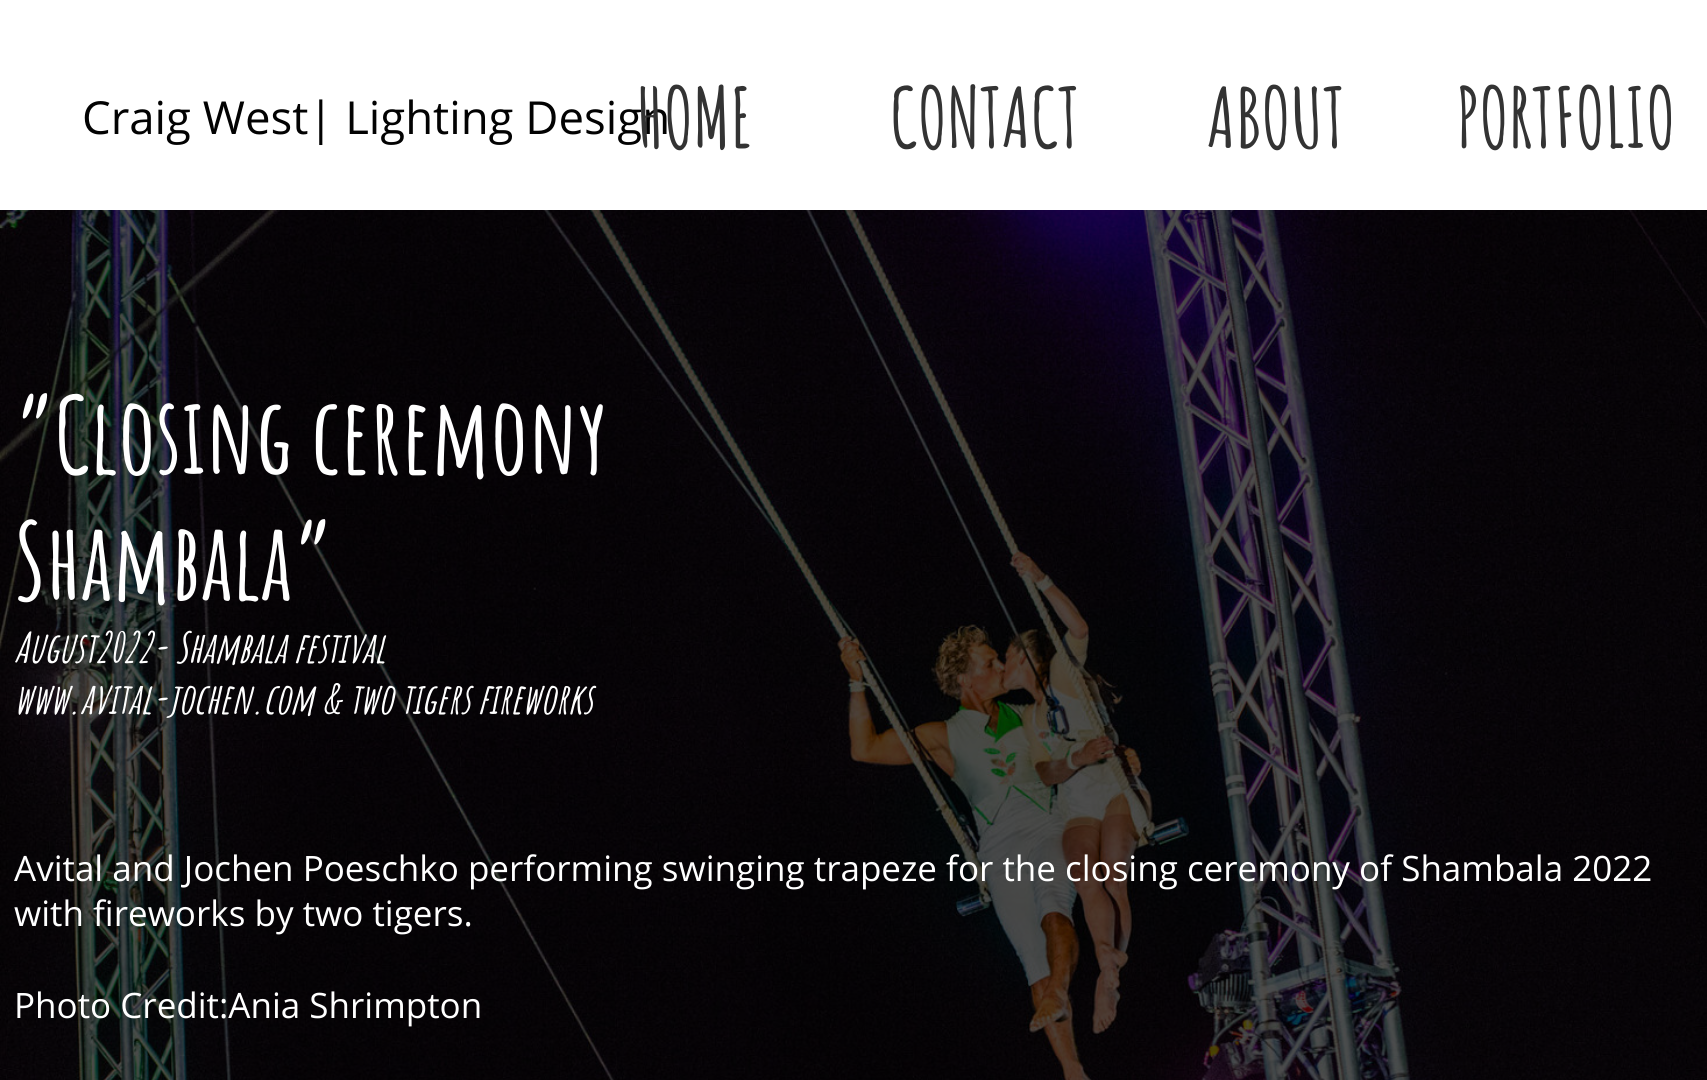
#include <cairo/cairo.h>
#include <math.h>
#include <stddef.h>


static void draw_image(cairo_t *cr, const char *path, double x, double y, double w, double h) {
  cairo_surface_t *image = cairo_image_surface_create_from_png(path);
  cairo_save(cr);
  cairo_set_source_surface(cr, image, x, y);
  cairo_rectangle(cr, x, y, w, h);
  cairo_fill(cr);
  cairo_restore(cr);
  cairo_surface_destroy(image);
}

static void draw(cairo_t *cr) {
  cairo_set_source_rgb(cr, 1, 1, 1);
  cairo_paint(cr);
  draw_image(cr, "images/1.png", 0, 210, 1707, 870);
  cairo_select_font_face(cr, "Open Sans", CAIRO_FONT_SLANT_NORMAL, CAIRO_FONT_WEIGHT_NORMAL);
  cairo_set_font_size(cr, 45.5);
  cairo_set_source_rgb(cr, 2 / 255.0, 2 / 255.0, 2 / 255.0);
  cairo_move_to(cr, 82, 134);
  cairo_show_text(cr, "Craig West| Lighting Design");
  cairo_select_font_face(cr, "Amatic SC", CAIRO_FONT_SLANT_NORMAL, CAIRO_FONT_WEIGHT_BOLD);
  cairo_set_font_size(cr, 82);
  cairo_set_source_rgb(cr, 51 / 255.0, 51 / 255.0, 51 / 255.0);
  cairo_move_to(cr, 637, 148);
  cairo_show_text(cr, "HOME");
  cairo_move_to(cr, 890, 148);
  cairo_show_text(cr, "CONTACT");
  cairo_move_to(cr, 1207, 148);
  cairo_show_text(cr, "ABOUT");
  cairo_move_to(cr, 1456, 148);
  cairo_show_text(cr, "PORTFOLIO");
  cairo_set_font_size(cr, 105);
  cairo_set_source_rgb(cr, 1, 1, 1);
  cairo_move_to(cr, 14, 474);
  cairo_show_text(cr, "”Closing ceremony");
  cairo_move_to(cr, 14, 600);
  cairo_show_text(cr, "Shambala”");
  cairo_select_font_face(cr, "Amatic SC", CAIRO_FONT_SLANT_ITALIC, CAIRO_FONT_WEIGHT_BOLD);
  cairo_set_font_size(cr, 42);
  cairo_move_to(cr, 14, 663);
  cairo_show_text(cr, "August2022- Shambala festival");
  cairo_move_to(cr, 14, 714);
  cairo_show_text(cr, "www.avital-jochen.com & two tigers fireworks");
  cairo_select_font_face(cr, "Open Sans", CAIRO_FONT_SLANT_NORMAL, CAIRO_FONT_WEIGHT_NORMAL);
  cairo_set_font_size(cr, 35);
  cairo_move_to(cr, 14, 881);
  cairo_show_text(cr, "Avital and Jochen Poeschko performing swinging trapeze for the closing ceremony of Shambala 2022");
  cairo_move_to(cr, 14, 926);
  cairo_show_text(cr, "with fireworks by two tigers.");
  cairo_move_to(cr, 14, 1018);
  cairo_show_text(cr, "Photo Credit:Ania Shrimpton");
}

int main(void) {
  cairo_surface_t *surface = cairo_image_surface_create(CAIRO_FORMAT_RGB24, 1707, 1080);
  cairo_t *cr = cairo_create(surface);
  cairo_font_options_t *options = cairo_font_options_create();
  cairo_font_options_set_hint_metrics(options, CAIRO_HINT_METRICS_OFF);
  cairo_font_options_set_hint_style(options, CAIRO_HINT_STYLE_NONE);
  cairo_set_font_options(cr, options);
  cairo_set_miter_limit(cr, 4);
  draw(cr);
  cairo_surface_write_to_png(surface, "out.png");
  cairo_font_options_destroy(options);
  cairo_destroy(cr);
  cairo_surface_destroy(surface);
  return 0;
}
